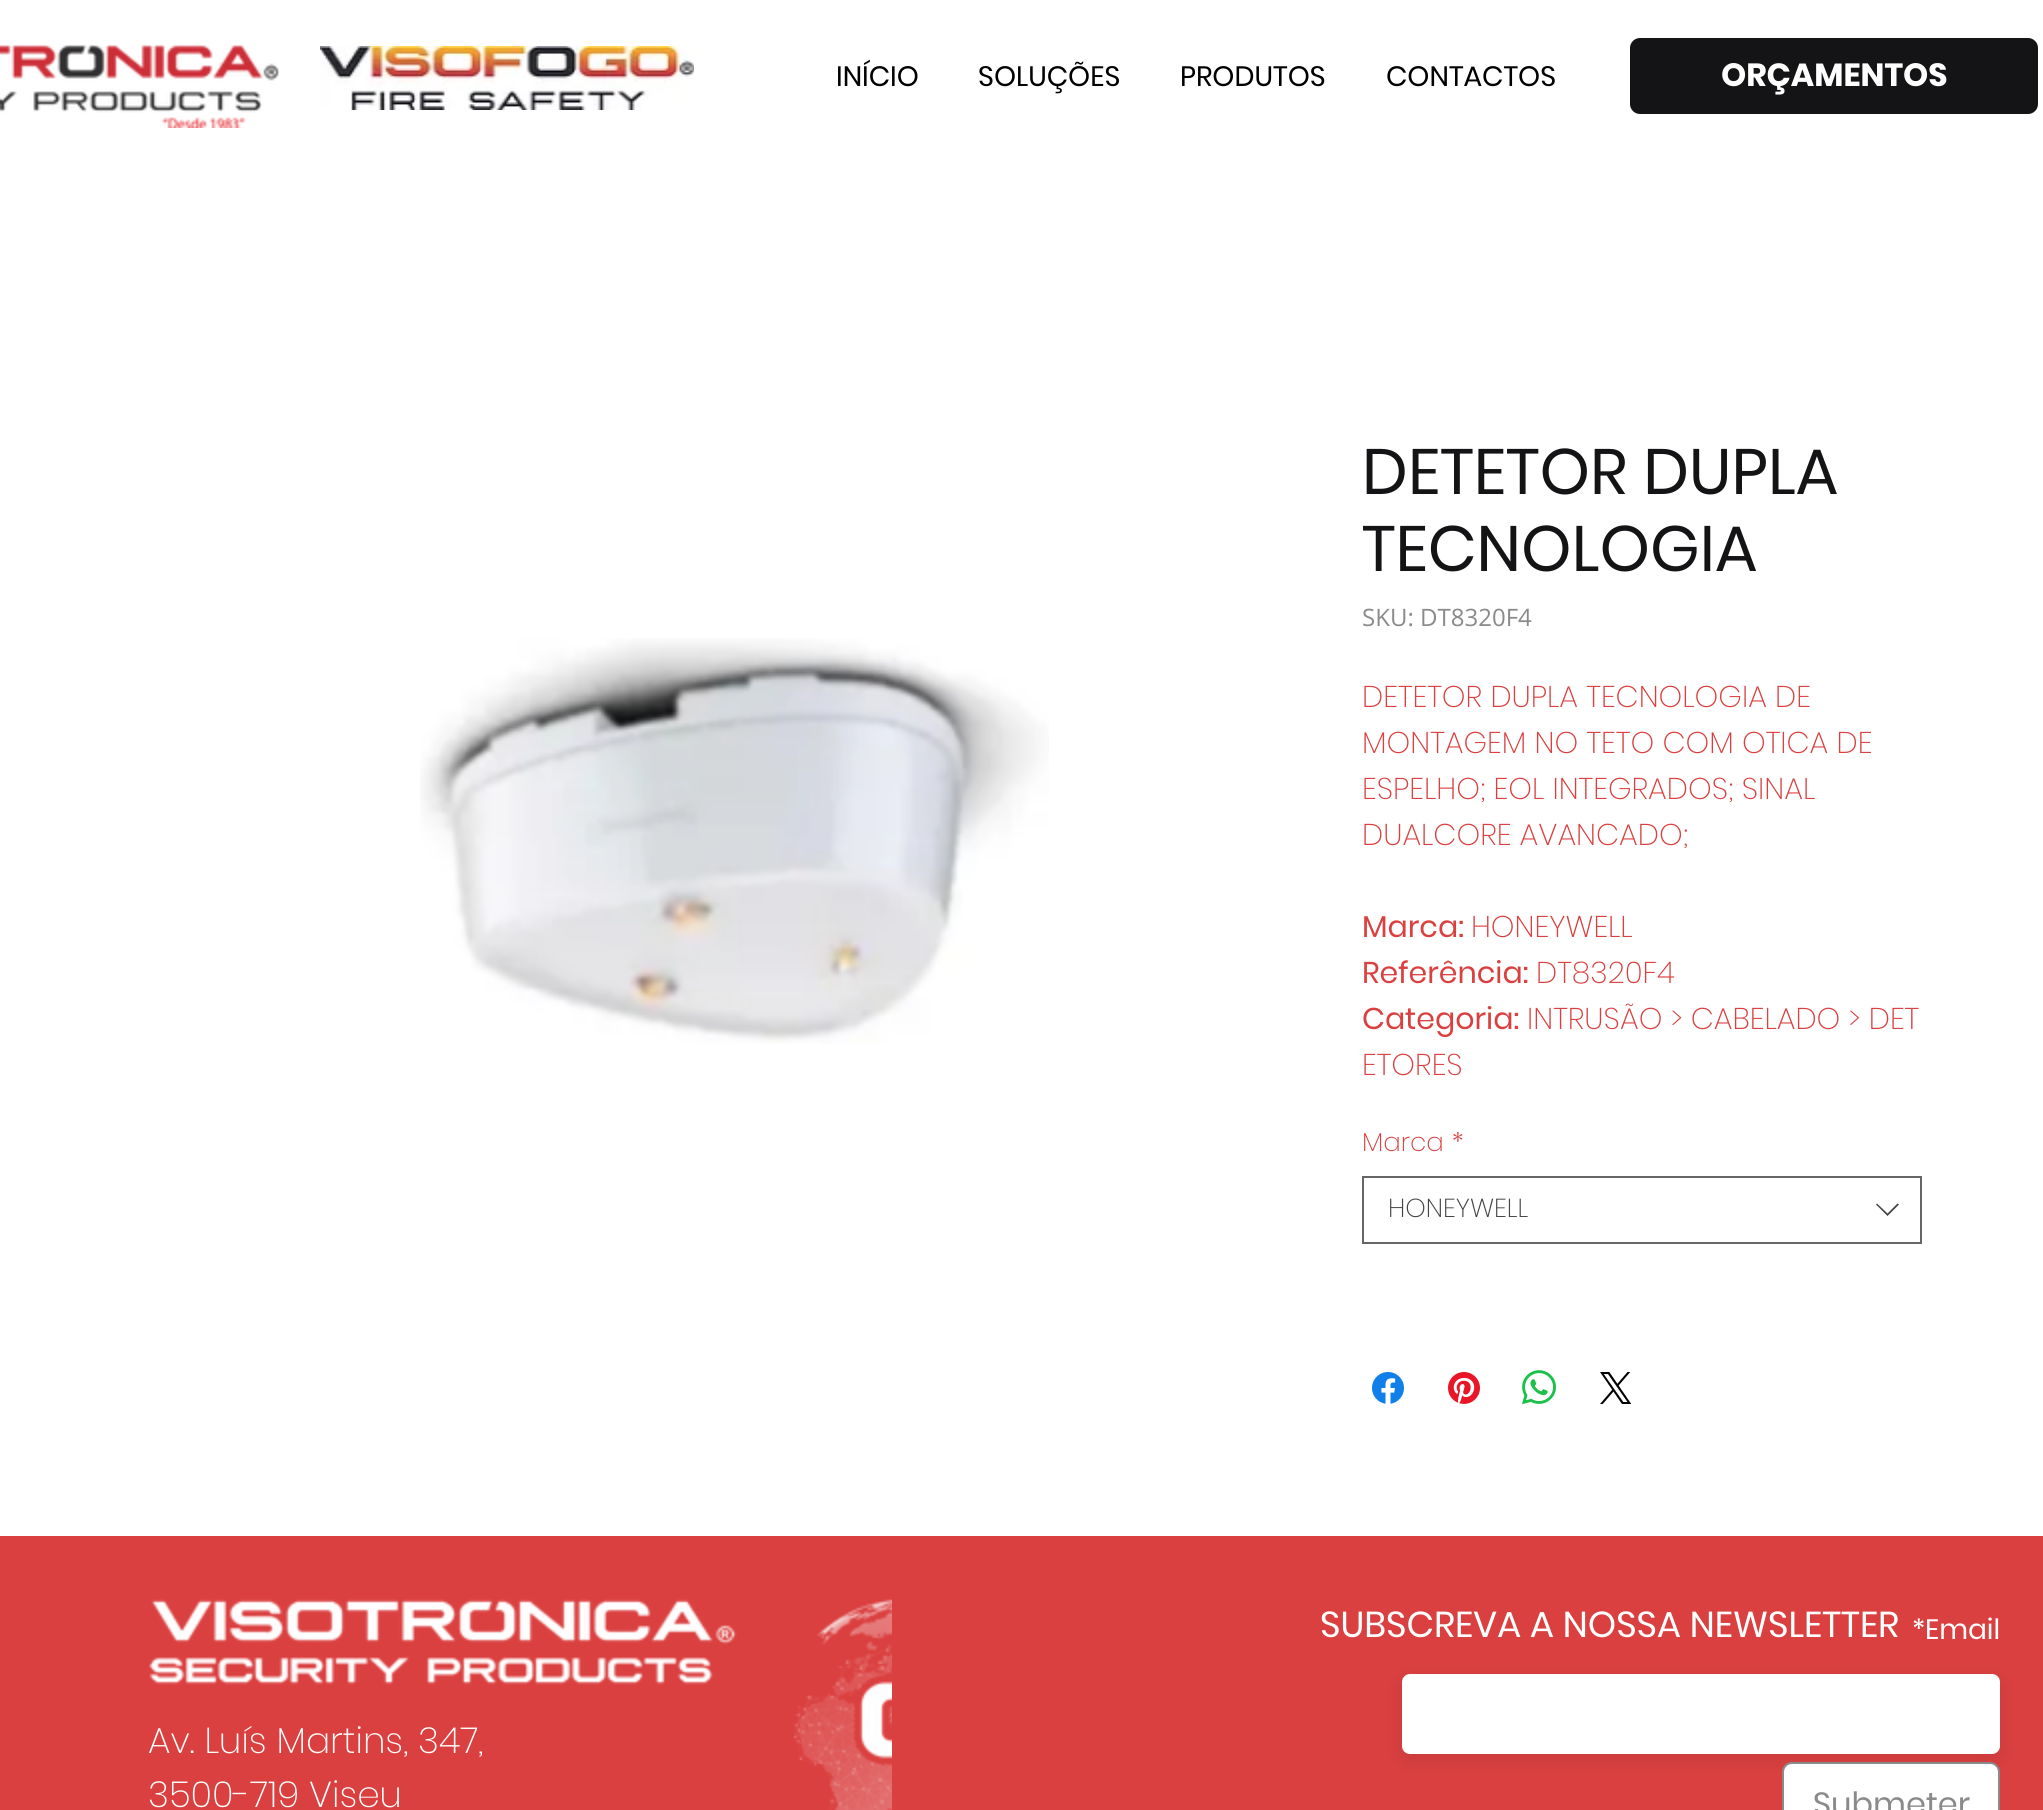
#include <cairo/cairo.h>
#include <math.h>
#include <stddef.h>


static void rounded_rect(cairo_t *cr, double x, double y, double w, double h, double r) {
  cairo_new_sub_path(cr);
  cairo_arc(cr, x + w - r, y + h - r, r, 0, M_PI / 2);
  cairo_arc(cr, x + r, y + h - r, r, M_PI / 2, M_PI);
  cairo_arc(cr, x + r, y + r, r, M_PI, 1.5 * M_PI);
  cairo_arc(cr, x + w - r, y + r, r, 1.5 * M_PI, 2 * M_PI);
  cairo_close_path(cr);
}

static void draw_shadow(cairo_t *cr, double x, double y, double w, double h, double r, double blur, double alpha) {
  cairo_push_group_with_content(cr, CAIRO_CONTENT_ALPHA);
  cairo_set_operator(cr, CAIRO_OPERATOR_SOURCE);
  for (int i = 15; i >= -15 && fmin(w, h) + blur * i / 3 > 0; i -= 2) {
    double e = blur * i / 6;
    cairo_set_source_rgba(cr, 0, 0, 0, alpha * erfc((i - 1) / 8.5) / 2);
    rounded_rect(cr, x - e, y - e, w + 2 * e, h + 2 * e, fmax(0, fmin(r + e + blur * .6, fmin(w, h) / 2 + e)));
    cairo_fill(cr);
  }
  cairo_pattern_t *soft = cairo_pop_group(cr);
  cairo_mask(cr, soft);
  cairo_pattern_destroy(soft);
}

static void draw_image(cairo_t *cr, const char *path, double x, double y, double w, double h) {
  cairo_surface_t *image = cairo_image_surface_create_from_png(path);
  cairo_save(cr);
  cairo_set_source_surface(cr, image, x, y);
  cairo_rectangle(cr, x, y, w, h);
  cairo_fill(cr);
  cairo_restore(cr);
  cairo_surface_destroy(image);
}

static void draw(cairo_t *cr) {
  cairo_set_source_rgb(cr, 1, 1, 1);
  cairo_paint(cr);
  draw_image(cr, "images/1.png", 0, 44, 280, 84);
  draw_image(cr, "images/2.png", 320, 46, 374, 64);
  cairo_set_source_rgb(cr, 20 / 255.0, 20 / 255.0, 22 / 255.0);
  rounded_rect(cr, 1630, 38, 408, 76, 10);
  cairo_fill(cr);
  draw_image(cr, "images/3.png", 420, 638, 629, 406);
  cairo_rectangle(cr, 1363, 1177, 558, 66);
  cairo_set_source_rgb(cr, 102 / 255.0, 102 / 255.0, 102 / 255.0);
  cairo_stroke(cr);
  cairo_set_source_rgb(cr, 68 / 255.0, 68 / 255.0, 68 / 255.0);
  cairo_set_fill_rule(cr, CAIRO_FILL_RULE_EVEN_ODD);
  cairo_new_path(cr);
  cairo_move_to(cr, 1897.5, 1203.5);
  cairo_line_to(cr, 1899, 1204.5);
  cairo_line_to(cr, 1887.5, 1216);
  cairo_line_to(cr, 1876, 1204.5);
  cairo_line_to(cr, 1877, 1203.5);
  cairo_line_to(cr, 1887.5, 1213.5);
  cairo_close_path(cr);
  cairo_fill(cr);
  draw_image(cr, "images/4.png", 1372, 1372, 32, 32);
  draw_image(cr, "images/5.png", 1448, 1372, 32, 32);
  draw_image(cr, "images/6.png", 1522, 1370, 34, 35);
  draw_image(cr, "images/7.png", 1600, 1372, 32, 32);
  cairo_set_source_rgb(cr, 219 / 255.0, 64 / 255.0, 64 / 255.0);
  cairo_rectangle(cr, 0, 1536, 2043, 274);
  cairo_fill(cr);
  draw_image(cr, "images/8.png", 149, 1599, 588, 86);
  draw_image(cr, "images/9.png", 793, 1599, 99, 211);
  cairo_set_source_rgb(cr, 0, 0, 0);
  draw_shadow(cr, 1400, 1678, 602, 84, 10, 10, 0.08);
  cairo_set_source_rgb(cr, 1, 1, 1);
  rounded_rect(cr, 1402, 1674, 598, 80, 8);
  cairo_fill(cr);
  rounded_rect(cr, 1783, 1763, 216, 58, 9);
  cairo_fill_preserve(cr);
  cairo_set_source_rgb(cr, 138 / 255.0, 138 / 255.0, 138 / 255.0);
  cairo_stroke(cr);
  cairo_select_font_face(cr, "Poppins", CAIRO_FONT_SLANT_NORMAL, CAIRO_FONT_WEIGHT_NORMAL);
  cairo_set_font_size(cr, 28);
  cairo_set_source_rgb(cr, 0, 0, 0);
  cairo_move_to(cr, 836, 86);
  cairo_show_text(cr, "INÍCIO");
  cairo_move_to(cr, 978, 86);
  cairo_show_text(cr, "SOLUÇÕES");
  cairo_move_to(cr, 1180, 86);
  cairo_show_text(cr, "PRODUTOS");
  cairo_move_to(cr, 1386, 86);
  cairo_show_text(cr, "CONTACTOS");
  cairo_select_font_face(cr, "Poppins", CAIRO_FONT_SLANT_NORMAL, CAIRO_FONT_WEIGHT_BOLD);
  cairo_set_font_size(cr, 32);
  cairo_set_source_rgb(cr, 1, 1, 1);
  cairo_move_to(cr, 1721, 86);
  cairo_show_text(cr, "ORÇAMENTOS");
  cairo_select_font_face(cr, "Poppins", CAIRO_FONT_SLANT_NORMAL, CAIRO_FONT_WEIGHT_NORMAL);
  cairo_set_font_size(cr, 64);
  cairo_set_source_rgb(cr, 20 / 255.0, 20 / 255.0, 22 / 255.0);
  cairo_move_to(cr, 1362, 494);
  cairo_show_text(cr, "DETETOR DUPLA");
  cairo_move_to(cr, 1362, 571);
  cairo_show_text(cr, "TECNOLOGIA");
  cairo_select_font_face(cr, "Open Sans", CAIRO_FONT_SLANT_NORMAL, CAIRO_FONT_WEIGHT_NORMAL);
  cairo_set_font_size(cr, 24);
  cairo_set_source_rgb(cr, 138 / 255.0, 138 / 255.0, 138 / 255.0);
  cairo_move_to(cr, 1362, 626);
  cairo_show_text(cr, "SKU: DT8320F4");
  cairo_select_font_face(cr, "Poppins ExtraLight", CAIRO_FONT_SLANT_NORMAL, CAIRO_FONT_WEIGHT_NORMAL);
  cairo_set_font_size(cr, 30);
  cairo_set_source_rgb(cr, 219 / 255.0, 64 / 255.0, 64 / 255.0);
  cairo_move_to(cr, 1362, 707);
  cairo_show_text(cr, "DETETOR DUPLA TECNOLOGIA DE");
  cairo_move_to(cr, 1362, 753);
  cairo_show_text(cr, "MONTAGEM NO TETO COM OTICA DE");
  cairo_move_to(cr, 1362, 799);
  cairo_show_text(cr, "ESPELHO; EOL INTEGRADOS; SINAL");
  cairo_move_to(cr, 1362, 845);
  cairo_show_text(cr, "DUALCORE AVANCADO;");
  cairo_select_font_face(cr, "Poppins", CAIRO_FONT_SLANT_NORMAL, CAIRO_FONT_WEIGHT_NORMAL);
  cairo_move_to(cr, 1362, 937);
  cairo_show_text(cr, "Marca:");
  cairo_select_font_face(cr, "Poppins ExtraLight", CAIRO_FONT_SLANT_NORMAL, CAIRO_FONT_WEIGHT_NORMAL);
  cairo_move_to(cr, 1471, 937);
  cairo_show_text(cr, "HONEYWELL");
  cairo_select_font_face(cr, "Poppins", CAIRO_FONT_SLANT_NORMAL, CAIRO_FONT_WEIGHT_NORMAL);
  cairo_move_to(cr, 1362, 983);
  cairo_show_text(cr, "Referência:");
  cairo_select_font_face(cr, "Poppins ExtraLight", CAIRO_FONT_SLANT_NORMAL, CAIRO_FONT_WEIGHT_NORMAL);
  cairo_move_to(cr, 1536, 983);
  cairo_show_text(cr, "DT8320F4");
  cairo_select_font_face(cr, "Poppins", CAIRO_FONT_SLANT_NORMAL, CAIRO_FONT_WEIGHT_NORMAL);
  cairo_move_to(cr, 1362, 1029);
  cairo_show_text(cr, "Categoria:");
  cairo_select_font_face(cr, "Poppins ExtraLight", CAIRO_FONT_SLANT_NORMAL, CAIRO_FONT_WEIGHT_NORMAL);
  cairo_move_to(cr, 1527, 1029);
  cairo_show_text(cr, "INTRUSÃO > CABELADO > DET");
  cairo_move_to(cr, 1362, 1075);
  cairo_show_text(cr, "ETORES");
  cairo_set_font_size(cr, 26);
  cairo_move_to(cr, 1362, 1151);
  cairo_show_text(cr, "Marca");
  cairo_move_to(cr, 1452, 1151);
  cairo_show_text(cr, "*");
  cairo_set_source_rgb(cr, 68 / 255.0, 68 / 255.0, 68 / 255.0);
  cairo_move_to(cr, 1388, 1217);
  cairo_show_text(cr, "HONEYWELL");
  cairo_set_font_size(cr, 36);
  cairo_set_source_rgb(cr, 1, 1, 1);
  cairo_move_to(cr, 148, 1753);
  cairo_show_text(cr, "Av. Luís Martins, 347,");
  cairo_move_to(cr, 148, 1807);
  cairo_show_text(cr, "3500-719 Viseu");
  cairo_select_font_face(cr, "Poppins", CAIRO_FONT_SLANT_NORMAL, CAIRO_FONT_WEIGHT_NORMAL);
  cairo_move_to(cr, 1320, 1637);
  cairo_show_text(cr, "SUBSCREVA A NOSSA NEWSLETTER");
  cairo_set_font_size(cr, 28);
  cairo_move_to(cr, 1912, 1639);
  cairo_show_text(cr, "*");
  cairo_move_to(cr, 1925, 1639);
  cairo_show_text(cr, "Email");
  cairo_set_font_size(cr, 32);
  cairo_set_source_rgb(cr, 138 / 255.0, 138 / 255.0, 138 / 255.0);
  cairo_move_to(cr, 1813, 1815);
  cairo_show_text(cr, "Submeter");
}

int main(void) {
  cairo_surface_t *surface = cairo_image_surface_create(CAIRO_FORMAT_RGB24, 2043, 1810);
  cairo_t *cr = cairo_create(surface);
  cairo_font_options_t *options = cairo_font_options_create();
  cairo_font_options_set_hint_metrics(options, CAIRO_HINT_METRICS_OFF);
  cairo_font_options_set_hint_style(options, CAIRO_HINT_STYLE_NONE);
  cairo_set_font_options(cr, options);
  cairo_set_miter_limit(cr, 4);
  draw(cr);
  cairo_surface_write_to_png(surface, "out.png");
  cairo_font_options_destroy(options);
  cairo_destroy(cr);
  cairo_surface_destroy(surface);
  return 0;
}
